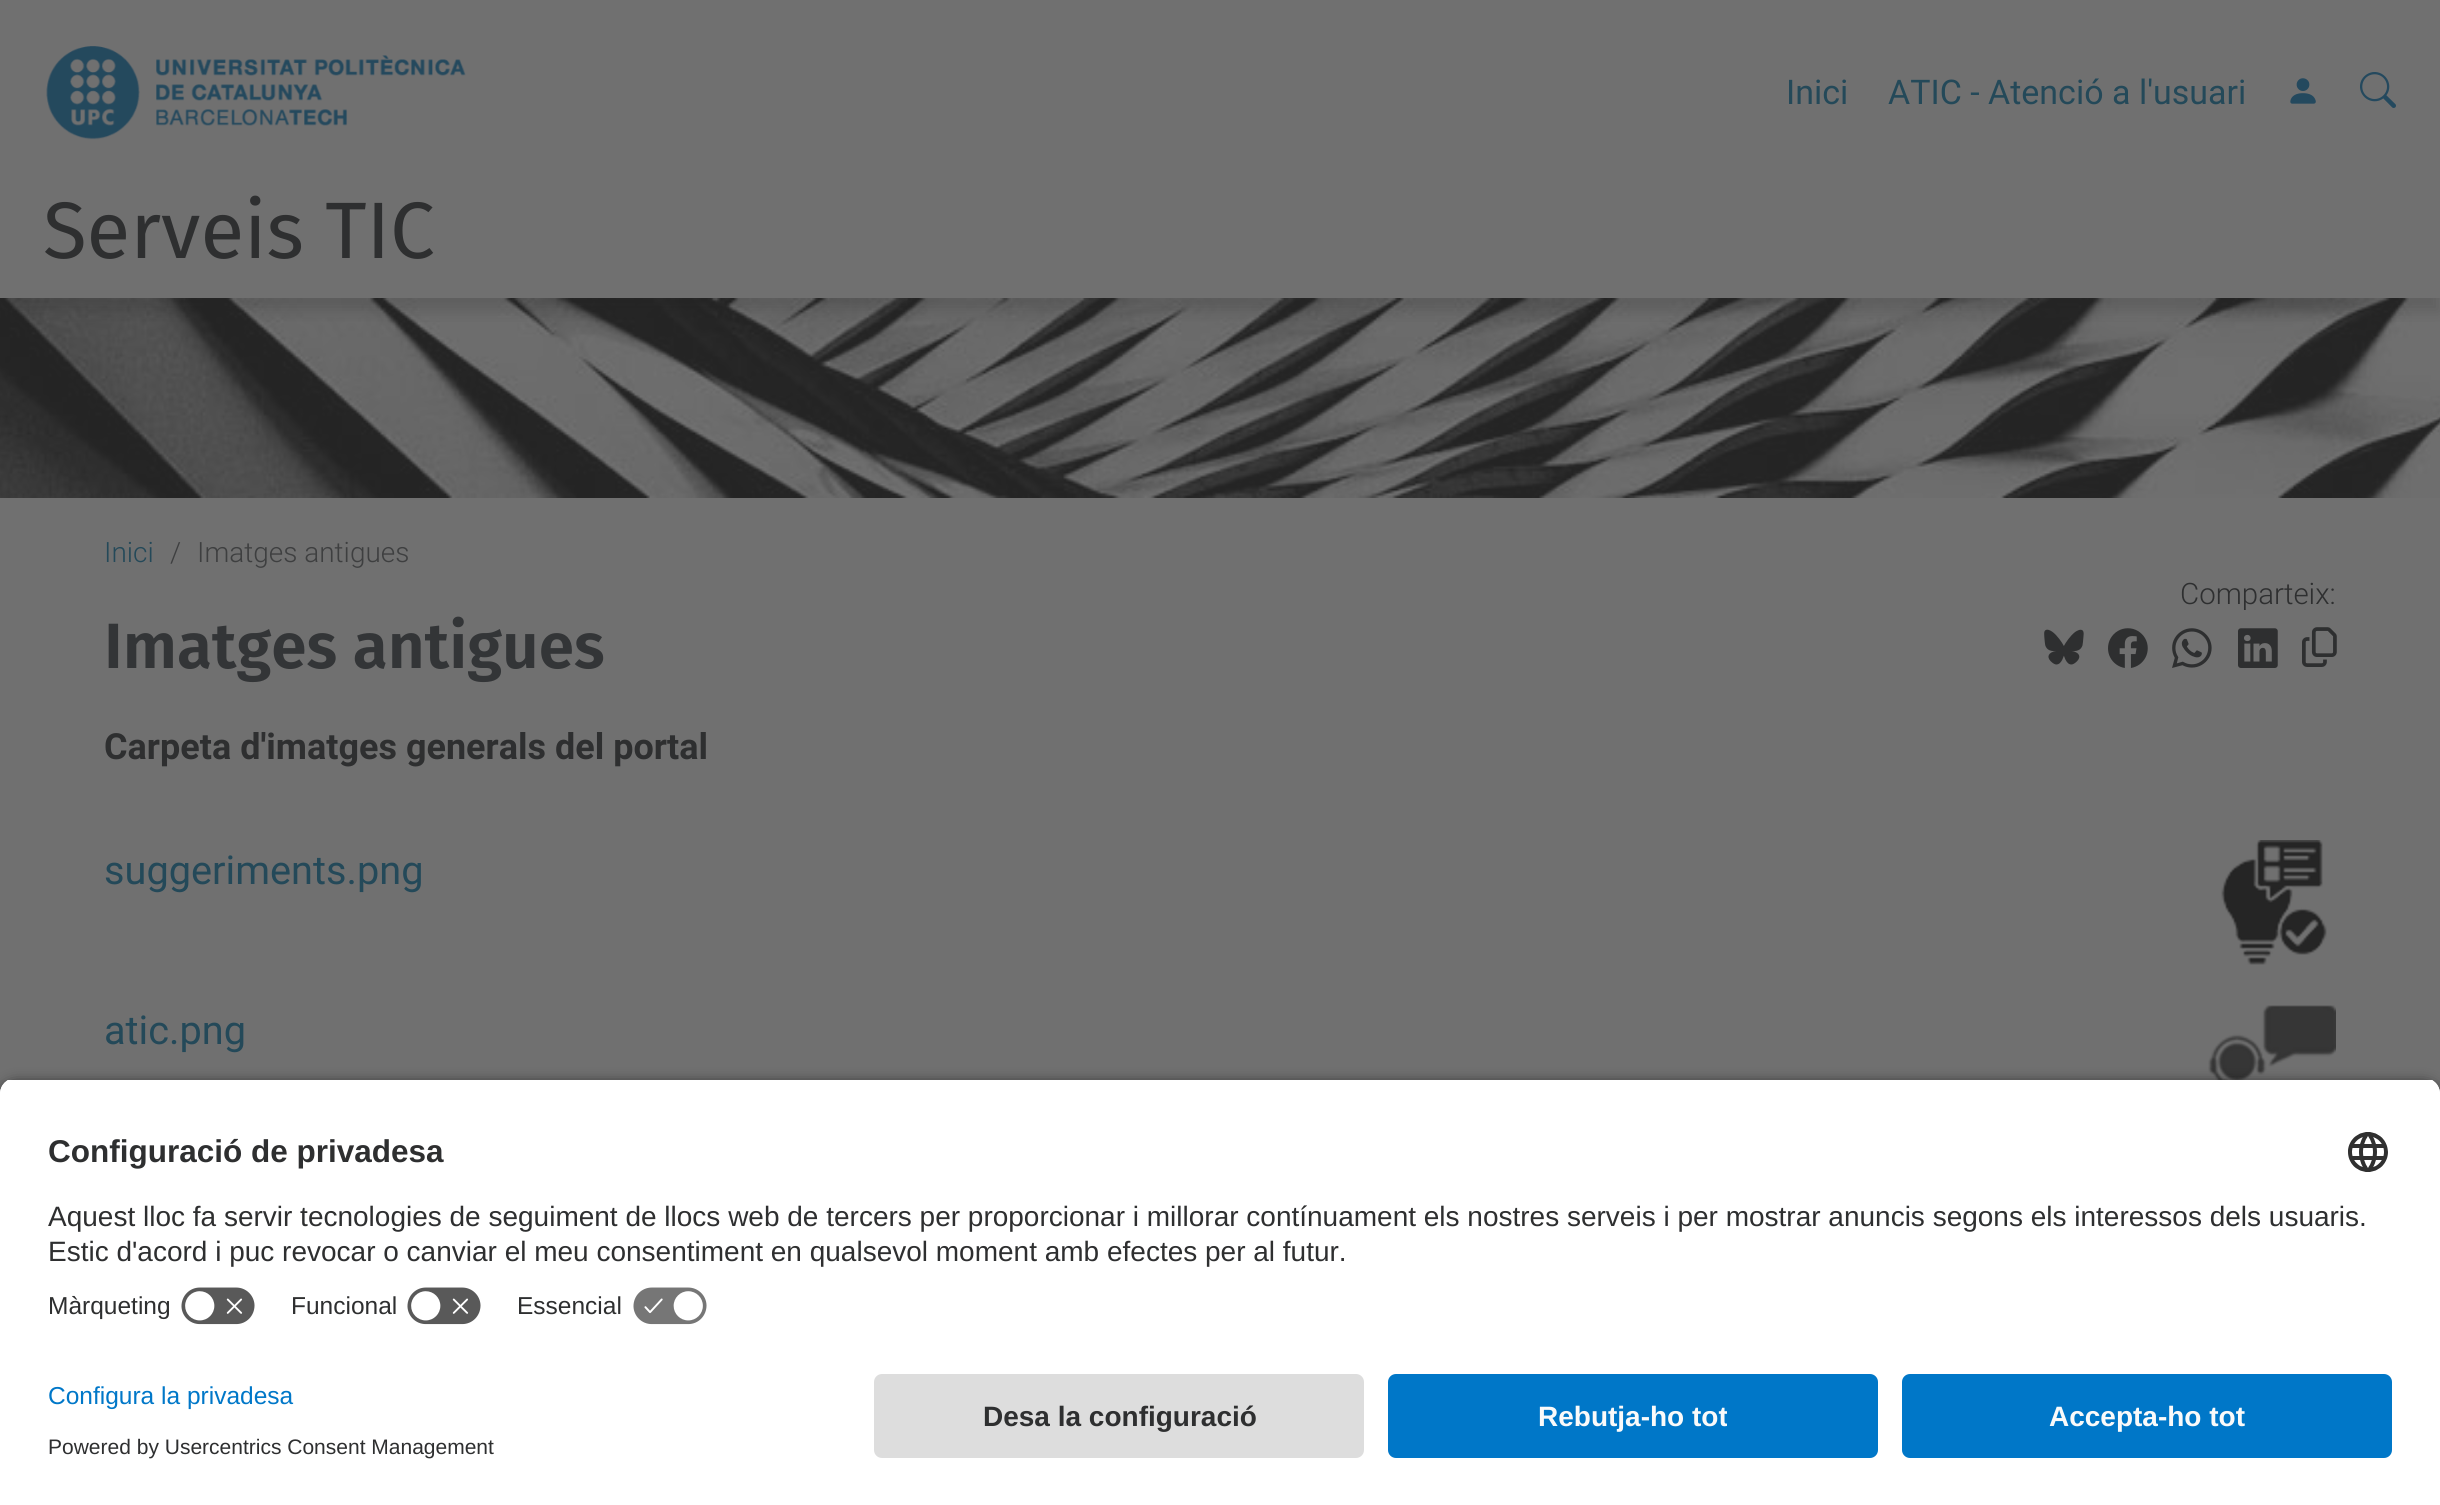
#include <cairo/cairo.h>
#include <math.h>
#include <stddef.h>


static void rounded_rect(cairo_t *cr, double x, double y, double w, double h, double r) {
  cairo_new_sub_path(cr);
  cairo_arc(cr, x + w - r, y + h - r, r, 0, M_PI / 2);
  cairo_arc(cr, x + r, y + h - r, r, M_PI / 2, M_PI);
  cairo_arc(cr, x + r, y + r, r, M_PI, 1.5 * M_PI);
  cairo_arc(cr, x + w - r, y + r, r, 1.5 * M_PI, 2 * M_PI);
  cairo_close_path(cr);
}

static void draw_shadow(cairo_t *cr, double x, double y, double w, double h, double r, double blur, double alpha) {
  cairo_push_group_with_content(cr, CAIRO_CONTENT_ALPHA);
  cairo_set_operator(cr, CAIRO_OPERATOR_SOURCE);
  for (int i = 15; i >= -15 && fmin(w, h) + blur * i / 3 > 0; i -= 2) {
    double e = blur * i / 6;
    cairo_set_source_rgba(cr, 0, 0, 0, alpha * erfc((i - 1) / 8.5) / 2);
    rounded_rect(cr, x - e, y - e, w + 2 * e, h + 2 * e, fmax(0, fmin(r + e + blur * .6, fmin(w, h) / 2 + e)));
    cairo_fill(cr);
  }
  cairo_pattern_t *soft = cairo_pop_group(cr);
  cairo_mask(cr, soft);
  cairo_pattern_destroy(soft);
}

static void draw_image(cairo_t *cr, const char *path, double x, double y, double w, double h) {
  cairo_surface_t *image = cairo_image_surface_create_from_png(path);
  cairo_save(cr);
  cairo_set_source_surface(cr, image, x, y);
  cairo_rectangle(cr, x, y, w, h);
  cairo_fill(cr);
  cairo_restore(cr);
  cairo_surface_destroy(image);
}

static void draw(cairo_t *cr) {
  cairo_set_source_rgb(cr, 112 / 255.0, 112 / 255.0, 112 / 255.0);
  cairo_paint(cr);
  draw_image(cr, "images/1.png", 46, 46, 420, 94);
  draw_image(cr, "images/2.png", 2290, 78, 26, 26);
  draw_image(cr, "images/3.png", 2360, 72, 36, 36);
  draw_image(cr, "images/4.png", 0, 298, 2440, 200);
  cairo_save(cr);
  cairo_rectangle(cr, 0, 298, 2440, 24);
  cairo_clip(cr);
  cairo_set_source_rgb(cr, 36 / 255.0, 36 / 255.0, 36 / 255.0);
  draw_shadow(cr, 0, 198, 2440, 114, 0, 8, 0.2);
  cairo_restore(cr);
  draw_image(cr, "images/5.png", 2044, 629, 40, 36);
  draw_image(cr, "images/6.png", 2108, 628, 40, 40);
  draw_image(cr, "images/7.png", 2172, 628, 40, 40);
  draw_image(cr, "images/8.png", 2238, 628, 40, 40);
  draw_image(cr, "images/9.png", 2302, 627, 35, 40);
  draw_image(cr, "images/10.png", 2221, 840, 106, 125);
  draw_image(cr, "images/11.png", 2208, 1005, 128, 75);
  cairo_set_source_rgb(cr, 0, 0, 0);
  draw_shadow(cr, 0, 1084, 2440, 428, 16, 7, 0.8);
  cairo_save(cr);
  cairo_new_path(cr);
  cairo_move_to(cr, 16, 1078);
  cairo_line_to(cr, 2424, 1078);
  cairo_curve_to(cr, 2433, 1078, 2440, 1085, 2440, 1094);
  cairo_line_to(cr, 2440, 1358);
  cairo_line_to(cr, 0, 1358);
  cairo_line_to(cr, 0, 1094);
  cairo_curve_to(cr, 0, 1085, 7, 1078, 16, 1078);
  cairo_close_path(cr);
  cairo_clip(cr);
  cairo_set_source_rgb(cr, 1, 1, 1);
  cairo_rectangle(cr, 0, 1080, 2440, 278);
  cairo_fill(cr);
  cairo_rectangle(cr, 0, 1080, 2440, 198);
  cairo_fill(cr);
  cairo_restore(cr);
  draw_image(cr, "images/12.png", 2348, 1132, 40, 40);
  draw_image(cr, "images/13.png", 181, 1287, 74, 38);
  draw_image(cr, "images/13.png", 407, 1287, 74, 38);
  draw_image(cr, "images/14.png", 633, 1287, 74, 38);
  cairo_set_source_rgb(cr, 1, 1, 1);
  cairo_rectangle(cr, 0, 1358, 2440, 147);
  cairo_fill(cr);
  cairo_set_source_rgb(cr, 221 / 255.0, 221 / 255.0, 221 / 255.0);
  rounded_rect(cr, 874, 1374, 490, 84, 8);
  cairo_fill(cr);
  cairo_set_source_rgb(cr, 0, 119 / 255.0, 200 / 255.0);
  rounded_rect(cr, 1388, 1374, 490, 84, 8);
  cairo_fill(cr);
  rounded_rect(cr, 1902, 1374, 490, 84, 8);
  cairo_fill(cr);
  cairo_select_font_face(cr, "Roboto", CAIRO_FONT_SLANT_NORMAL, CAIRO_FONT_WEIGHT_NORMAL);
  cairo_set_font_size(cr, 34);
  cairo_set_source_rgb(cr, 36 / 255.0, 73 / 255.0, 89 / 255.0);
  cairo_move_to(cr, 1786, 104);
  cairo_show_text(cr, "Inici");
  cairo_move_to(cr, 1888, 104);
  cairo_show_text(cr, "ATIC - Atenció a l'usuari");
  cairo_select_font_face(cr, "Fira Sans", CAIRO_FONT_SLANT_NORMAL, CAIRO_FONT_WEIGHT_NORMAL);
  cairo_set_font_size(cr, 80);
  cairo_set_source_rgb(cr, 46 / 255.0, 47 / 255.0, 48 / 255.0);
  cairo_move_to(cr, 43, 258);
  cairo_show_text(cr, "Serveis TIC");
  cairo_select_font_face(cr, "Roboto Light", CAIRO_FONT_SLANT_NORMAL, CAIRO_FONT_WEIGHT_NORMAL);
  cairo_set_font_size(cr, 28);
  cairo_set_source_rgb(cr, 36 / 255.0, 73 / 255.0, 89 / 255.0);
  cairo_move_to(cr, 104, 562);
  cairo_show_text(cr, "Inici");
  cairo_set_source_rgb(cr, 62 / 255.0, 63 / 255.0, 64 / 255.0);
  cairo_move_to(cr, 170, 562);
  cairo_show_text(cr, "/");
  cairo_move_to(cr, 197, 562);
  cairo_show_text(cr, "Imatges antigues");
  cairo_set_font_size(cr, 29.5);
  cairo_set_source_rgb(cr, 46 / 255.0, 47 / 255.0, 48 / 255.0);
  cairo_move_to(cr, 2180, 604);
  cairo_show_text(cr, "Comparteix:");
  cairo_select_font_face(cr, "Fira Sans SemiBold", CAIRO_FONT_SLANT_NORMAL, CAIRO_FONT_WEIGHT_NORMAL);
  cairo_set_font_size(cr, 64);
  cairo_set_source_rgb(cr, 51 / 255.0, 53 / 255.0, 55 / 255.0);
  cairo_move_to(cr, 104, 668);
  cairo_show_text(cr, "Imatges antigues");
  cairo_select_font_face(cr, "Roboto", CAIRO_FONT_SLANT_NORMAL, CAIRO_FONT_WEIGHT_BOLD);
  cairo_set_font_size(cr, 36);
  cairo_set_source_rgb(cr, 46 / 255.0, 47 / 255.0, 48 / 255.0);
  cairo_move_to(cr, 104, 759);
  cairo_show_text(cr, "Carpeta d'imatges generals del portal");
  cairo_select_font_face(cr, "Roboto", CAIRO_FONT_SLANT_NORMAL, CAIRO_FONT_WEIGHT_NORMAL);
  cairo_set_font_size(cr, 39.75);
  cairo_set_source_rgb(cr, 36 / 255.0, 73 / 255.0, 89 / 255.0);
  cairo_move_to(cr, 104, 884);
  cairo_show_text(cr, "suggeriments.png");
  cairo_move_to(cr, 104, 1044);
  cairo_show_text(cr, "atic.png");
  cairo_select_font_face(cr, "Liberation Sans", CAIRO_FONT_SLANT_NORMAL, CAIRO_FONT_WEIGHT_BOLD);
  cairo_set_font_size(cr, 31.5);
  cairo_set_source_rgb(cr, 46 / 255.0, 47 / 255.0, 48 / 255.0);
  cairo_move_to(cr, 48, 1162);
  cairo_show_text(cr, "Configuració de privadesa");
  cairo_select_font_face(cr, "Liberation Sans", CAIRO_FONT_SLANT_NORMAL, CAIRO_FONT_WEIGHT_NORMAL);
  cairo_set_font_size(cr, 28);
  cairo_move_to(cr, 48, 1226);
  cairo_show_text(cr, "Aquest lloc fa servir tecnologies de seguiment de llocs web de tercers per proporcionar i millorar contínuament els nostres serveis i per mostrar anuncis segons els interessos dels usuaris.");
  cairo_move_to(cr, 48, 1261);
  cairo_show_text(cr, "Estic d'acord i puc revocar o canviar el meu consentiment en qualsevol moment amb efectes per al futur.");
  cairo_set_font_size(cr, 24.5);
  cairo_move_to(cr, 48, 1314);
  cairo_show_text(cr, "Màrqueting");
  cairo_move_to(cr, 291, 1314);
  cairo_show_text(cr, "Funcional");
  cairo_move_to(cr, 517, 1314);
  cairo_show_text(cr, "Essencial");
  cairo_set_source_rgb(cr, 0, 119 / 255.0, 200 / 255.0);
  cairo_move_to(cr, 48, 1404);
  cairo_show_text(cr, "Configura la privadesa");
  cairo_set_font_size(cr, 21);
  cairo_set_source_rgb(cr, 46 / 255.0, 47 / 255.0, 48 / 255.0);
  cairo_move_to(cr, 48, 1454);
  cairo_show_text(cr, "Powered by Usercentrics Consent Management");
  cairo_select_font_face(cr, "Liberation Sans", CAIRO_FONT_SLANT_NORMAL, CAIRO_FONT_WEIGHT_BOLD);
  cairo_set_font_size(cr, 28);
  cairo_move_to(cr, 983, 1426);
  cairo_show_text(cr, "Desa la configuració");
  cairo_set_source_rgb(cr, 250 / 255.0, 250 / 255.0, 250 / 255.0);
  cairo_move_to(cr, 1538, 1426);
  cairo_show_text(cr, "Rebutja-ho tot");
  cairo_move_to(cr, 2049, 1426);
  cairo_show_text(cr, "Accepta-ho tot");
}

int main(void) {
  cairo_surface_t *surface = cairo_image_surface_create(CAIRO_FORMAT_RGB24, 2440, 1505);
  cairo_t *cr = cairo_create(surface);
  cairo_font_options_t *options = cairo_font_options_create();
  cairo_font_options_set_hint_metrics(options, CAIRO_HINT_METRICS_OFF);
  cairo_font_options_set_hint_style(options, CAIRO_HINT_STYLE_NONE);
  cairo_set_font_options(cr, options);
  cairo_set_miter_limit(cr, 4);
  draw(cr);
  cairo_surface_write_to_png(surface, "out.png");
  cairo_font_options_destroy(options);
  cairo_destroy(cr);
  cairo_surface_destroy(surface);
  return 0;
}
